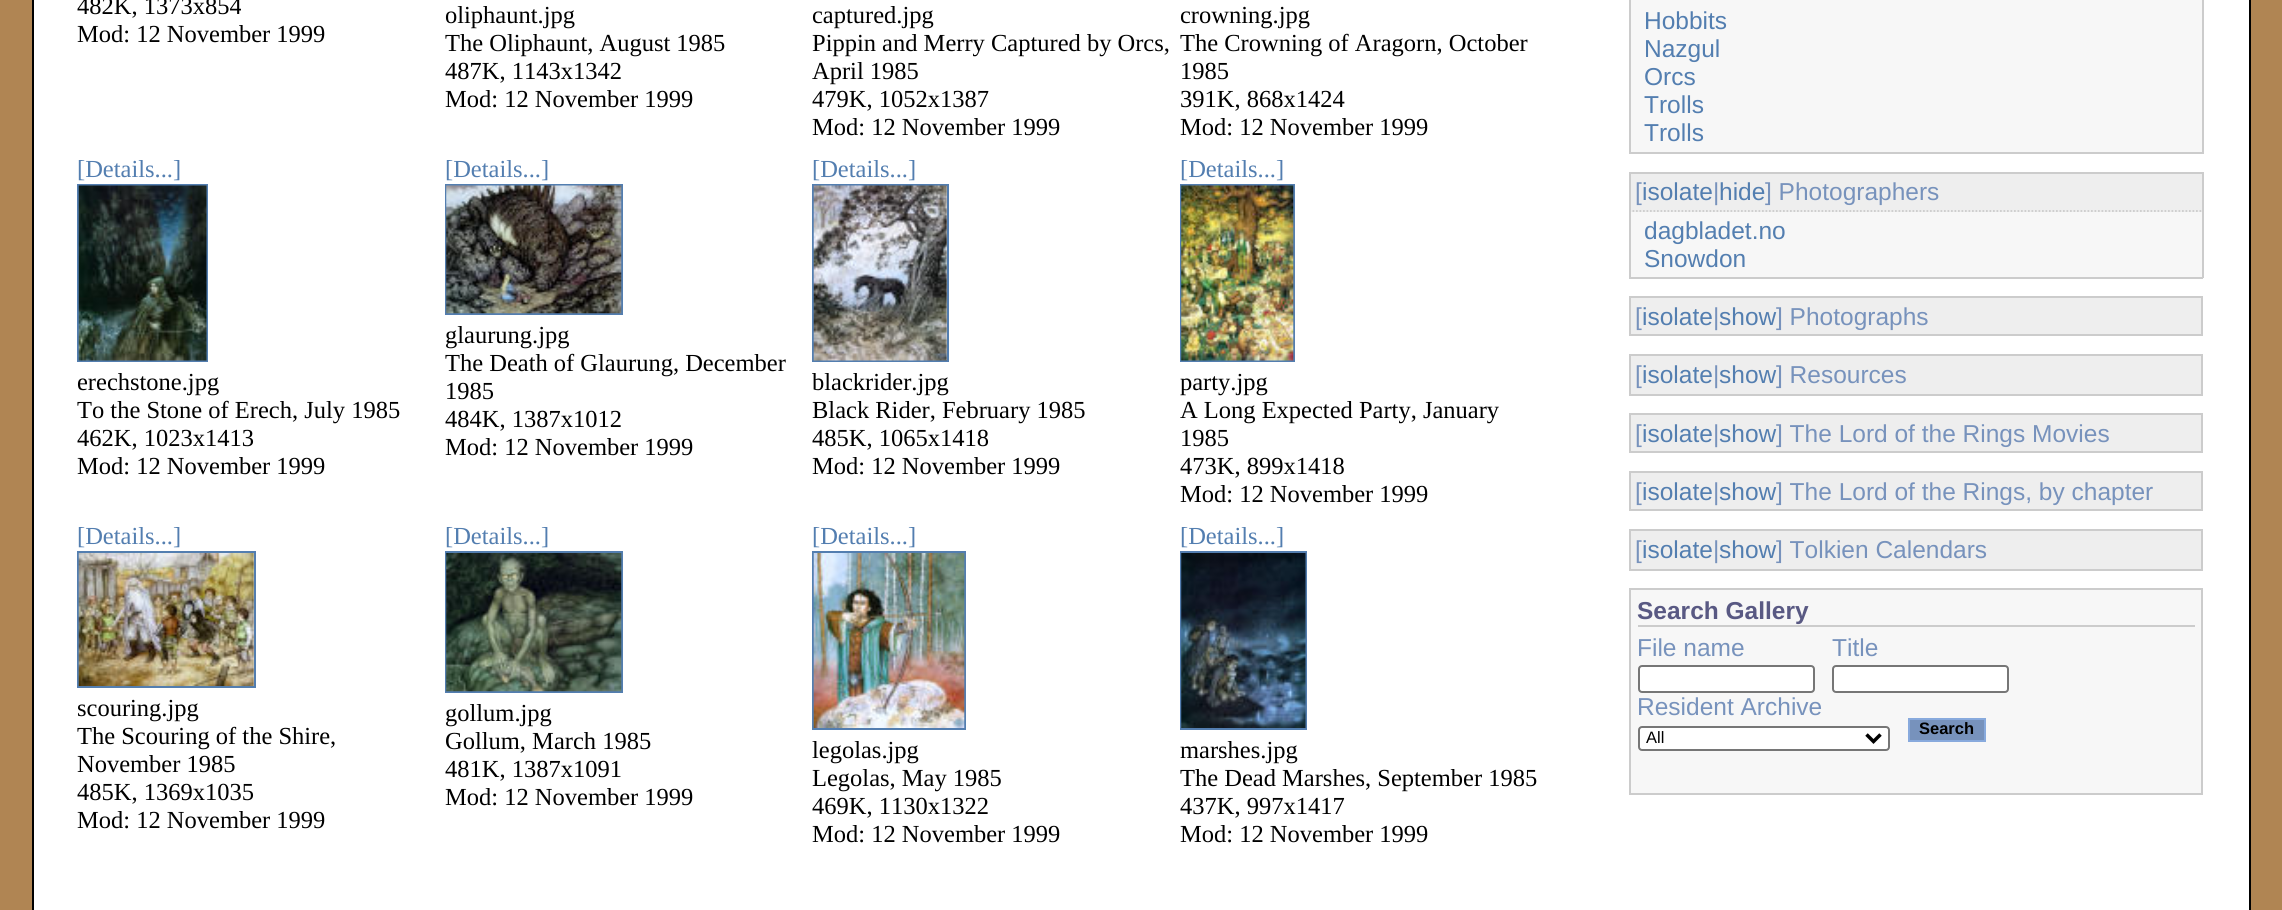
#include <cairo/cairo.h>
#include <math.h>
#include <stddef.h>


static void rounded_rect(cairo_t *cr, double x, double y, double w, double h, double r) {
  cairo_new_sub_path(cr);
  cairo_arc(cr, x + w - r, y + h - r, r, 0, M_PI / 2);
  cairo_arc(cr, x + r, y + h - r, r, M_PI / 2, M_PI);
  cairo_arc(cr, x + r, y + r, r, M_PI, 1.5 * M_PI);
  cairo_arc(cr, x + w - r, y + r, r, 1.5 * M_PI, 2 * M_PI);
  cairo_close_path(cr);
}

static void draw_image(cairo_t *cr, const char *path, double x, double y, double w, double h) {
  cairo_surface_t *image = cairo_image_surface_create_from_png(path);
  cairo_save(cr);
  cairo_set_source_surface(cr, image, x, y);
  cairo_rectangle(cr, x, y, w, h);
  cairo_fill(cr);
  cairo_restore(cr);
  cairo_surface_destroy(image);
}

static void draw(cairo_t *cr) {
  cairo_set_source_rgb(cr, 176 / 255.0, 133 / 255.0, 83 / 255.0);
  cairo_paint(cr);
  cairo_set_source_rgb(cr, 1, 1, 1);
  cairo_rectangle(cr, 33, -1, 2217, 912);
  cairo_fill_preserve(cr);
  cairo_set_source_rgb(cr, 0, 0, 0);
  cairo_stroke(cr);
  cairo_rectangle(cr, 78, 185, 129, 176);
  cairo_set_source_rgb(cr, 83 / 255.0, 126 / 255.0, 176 / 255.0);
  cairo_stroke(cr);
  draw_image(cr, "images/1.png", 78, 185, 129, 176);
  cairo_rectangle(cr, 446, 185, 176, 129);
  cairo_stroke(cr);
  draw_image(cr, "images/2.png", 446, 185, 176, 129);
  cairo_rectangle(cr, 813, 185, 135, 176);
  cairo_stroke(cr);
  draw_image(cr, "images/3.png", 813, 185, 134, 176);
  cairo_rectangle(cr, 1181, 185, 113, 176);
  cairo_stroke(cr);
  draw_image(cr, "images/4.png", 1181, 185, 113, 176);
  cairo_rectangle(cr, 78, 552, 177, 135);
  cairo_stroke(cr);
  draw_image(cr, "images/5.png", 78, 553, 176, 133);
  cairo_rectangle(cr, 446, 552, 176, 140);
  cairo_stroke(cr);
  draw_image(cr, "images/6.png", 446, 553, 176, 139);
  cairo_rectangle(cr, 813, 552, 152, 177);
  cairo_stroke(cr);
  draw_image(cr, "images/7.png", 813, 553, 152, 175);
  cairo_rectangle(cr, 1181, 552, 125, 177);
  cairo_stroke(cr);
  draw_image(cr, "images/8.png", 1181, 553, 125, 175);
  cairo_set_source_rgb(cr, 247 / 255.0, 247 / 255.0, 247 / 255.0);
  cairo_rectangle(cr, 1631, 0, 571, 152);
  cairo_fill(cr);
  cairo_set_source_rgb(cr, 204 / 255.0, 204 / 255.0, 204 / 255.0);
  cairo_rectangle(cr, 2202, 0, 2, 154);
  cairo_fill(cr);
  cairo_rectangle(cr, 1629, 152, 574, 2);
  cairo_fill(cr);
  cairo_rectangle(cr, 1629, 0, 2, 154);
  cairo_fill(cr);
  cairo_set_source_rgb(cr, 238 / 255.0, 238 / 255.0, 238 / 255.0);
  cairo_rectangle(cr, 1631, 174, 571, 38);
  cairo_fill(cr);
  cairo_set_source_rgb(cr, 204 / 255.0, 204 / 255.0, 204 / 255.0);
  cairo_rectangle(cr, 1629, 172, 574, 2);
  cairo_fill(cr);
  cairo_rectangle(cr, 2202, 172, 2, 106);
  cairo_fill(cr);
  cairo_new_path(cr);
  cairo_move_to(cr, 1629, 211);
  cairo_line_to(cr, 2203, 211);
  cairo_set_line_width(cr, 1.8);
  cairo_set_dash(cr, (double[]){1.75, 1.75}, 2, 0);
  cairo_stroke(cr);
  cairo_rectangle(cr, 1629, 172, 2, 40);
  cairo_fill(cr);
  cairo_set_source_rgb(cr, 247 / 255.0, 247 / 255.0, 247 / 255.0);
  cairo_rectangle(cr, 1631, 212, 571, 65);
  cairo_fill(cr);
  cairo_set_source_rgb(cr, 204 / 255.0, 204 / 255.0, 204 / 255.0);
  cairo_rectangle(cr, 1629, 277, 574, 2);
  cairo_fill(cr);
  cairo_rectangle(cr, 1629, 212, 2, 66);
  cairo_fill(cr);
  cairo_set_source_rgb(cr, 238 / 255.0, 238 / 255.0, 238 / 255.0);
  cairo_rectangle(cr, 1630, 297, 572, 38);
  cairo_fill_preserve(cr);
  cairo_set_source_rgb(cr, 204 / 255.0, 204 / 255.0, 204 / 255.0);
  cairo_set_line_width(cr, 2);
  cairo_set_dash(cr, NULL, 0, 0);
  cairo_stroke(cr);
  cairo_set_source_rgb(cr, 238 / 255.0, 238 / 255.0, 238 / 255.0);
  cairo_rectangle(cr, 1630, 355, 572, 40);
  cairo_fill_preserve(cr);
  cairo_set_source_rgb(cr, 204 / 255.0, 204 / 255.0, 204 / 255.0);
  cairo_stroke(cr);
  cairo_set_source_rgb(cr, 238 / 255.0, 238 / 255.0, 238 / 255.0);
  cairo_rectangle(cr, 1630, 414, 572, 38);
  cairo_fill_preserve(cr);
  cairo_set_source_rgb(cr, 204 / 255.0, 204 / 255.0, 204 / 255.0);
  cairo_stroke(cr);
  cairo_set_source_rgb(cr, 238 / 255.0, 238 / 255.0, 238 / 255.0);
  cairo_rectangle(cr, 1630, 472, 572, 38);
  cairo_fill_preserve(cr);
  cairo_set_source_rgb(cr, 204 / 255.0, 204 / 255.0, 204 / 255.0);
  cairo_stroke(cr);
  cairo_set_source_rgb(cr, 238 / 255.0, 238 / 255.0, 238 / 255.0);
  cairo_rectangle(cr, 1630, 530, 572, 40);
  cairo_fill_preserve(cr);
  cairo_set_source_rgb(cr, 204 / 255.0, 204 / 255.0, 204 / 255.0);
  cairo_stroke(cr);
  cairo_set_source_rgb(cr, 247 / 255.0, 247 / 255.0, 247 / 255.0);
  cairo_rectangle(cr, 1630, 589, 572, 205);
  cairo_fill_preserve(cr);
  cairo_set_source_rgb(cr, 204 / 255.0, 204 / 255.0, 204 / 255.0);
  cairo_stroke(cr);
  cairo_rectangle(cr, 1638, 625, 557, 2);
  cairo_fill(cr);
  cairo_set_source_rgb(cr, 1, 1, 1);
  rounded_rect(cr, 1639, 666, 175, 26, 3);
  cairo_fill_preserve(cr);
  cairo_set_source_rgb(cr, 118 / 255.0, 118 / 255.0, 118 / 255.0);
  cairo_stroke(cr);
  cairo_set_source_rgb(cr, 1, 1, 1);
  rounded_rect(cr, 1833, 666, 175, 26, 3);
  cairo_fill_preserve(cr);
  cairo_set_source_rgb(cr, 118 / 255.0, 118 / 255.0, 118 / 255.0);
  cairo_stroke(cr);
  cairo_set_source_rgb(cr, 1, 1, 1);
  rounded_rect(cr, 1639, 727, 250, 23, 3);
  cairo_fill_preserve(cr);
  cairo_set_source_rgb(cr, 118 / 255.0, 118 / 255.0, 118 / 255.0);
  cairo_stroke(cr);
  cairo_new_path(cr);
  cairo_move_to(cr, 1866.5, 734.5);
  cairo_line_to(cr, 1873.5, 741.5);
  cairo_line_to(cr, 1880.5, 734.5);
  cairo_set_source_rgb(cr, 0, 0, 0);
  cairo_set_line_width(cr, 3.5);
  cairo_stroke(cr);
  cairo_set_source_rgb(cr, 119 / 255.0, 146 / 255.0, 188 / 255.0);
  cairo_rectangle(cr, 1909, 719, 76, 22);
  cairo_fill_preserve(cr);
  cairo_set_source_rgb(cr, 136 / 255.0, 170 / 255.0, 221 / 255.0);
  cairo_set_line_width(cr, 2);
  cairo_stroke(cr);
  cairo_select_font_face(cr, "Liberation Serif", CAIRO_FONT_SLANT_NORMAL, CAIRO_FONT_WEIGHT_NORMAL);
  cairo_set_font_size(cr, 24.5);
  cairo_set_source_rgb(cr, 0, 0, 0);
  cairo_move_to(cr, 77, 14);
  cairo_show_text(cr, "482K, 1373x854");
  cairo_move_to(cr, 77, 42);
  cairo_show_text(cr, "Mod: 12 November 1999");
  cairo_move_to(cr, 445, 23);
  cairo_show_text(cr, "oliphaunt.jpg");
  cairo_move_to(cr, 445, 51);
  cairo_show_text(cr, "The Oliphaunt, August 1985");
  cairo_move_to(cr, 445, 79);
  cairo_show_text(cr, "487K, 1143x1342");
  cairo_move_to(cr, 445, 107);
  cairo_show_text(cr, "Mod: 12 November 1999");
  cairo_move_to(cr, 812, 23);
  cairo_show_text(cr, "captured.jpg");
  cairo_move_to(cr, 812, 51);
  cairo_show_text(cr, "Pippin and Merry Captured by Orcs,");
  cairo_move_to(cr, 812, 79);
  cairo_show_text(cr, "April 1985");
  cairo_move_to(cr, 812, 107);
  cairo_show_text(cr, "479K, 1052x1387");
  cairo_move_to(cr, 812, 135);
  cairo_show_text(cr, "Mod: 12 November 1999");
  cairo_move_to(cr, 1180, 23);
  cairo_show_text(cr, "crowning.jpg");
  cairo_move_to(cr, 1180, 51);
  cairo_show_text(cr, "The Crowning of Aragorn, October");
  cairo_move_to(cr, 1180, 79);
  cairo_show_text(cr, "1985");
  cairo_move_to(cr, 1180, 107);
  cairo_show_text(cr, "391K, 868x1424");
  cairo_move_to(cr, 1180, 135);
  cairo_show_text(cr, "Mod: 12 November 1999");
  cairo_set_source_rgb(cr, 83 / 255.0, 126 / 255.0, 176 / 255.0);
  cairo_move_to(cr, 77, 177);
  cairo_show_text(cr, "[Details...]");
  cairo_set_source_rgb(cr, 0, 0, 0);
  cairo_move_to(cr, 77, 390);
  cairo_show_text(cr, "erechstone.jpg");
  cairo_move_to(cr, 77, 418);
  cairo_show_text(cr, "To the Stone of Erech, July 1985");
  cairo_move_to(cr, 77, 446);
  cairo_show_text(cr, "462K, 1023x1413");
  cairo_move_to(cr, 77, 474);
  cairo_show_text(cr, "Mod: 12 November 1999");
  cairo_set_source_rgb(cr, 83 / 255.0, 126 / 255.0, 176 / 255.0);
  cairo_move_to(cr, 445, 177);
  cairo_show_text(cr, "[Details...]");
  cairo_set_source_rgb(cr, 0, 0, 0);
  cairo_move_to(cr, 445, 343);
  cairo_show_text(cr, "glaurung.jpg");
  cairo_move_to(cr, 445, 371);
  cairo_show_text(cr, "The Death of Glaurung, December");
  cairo_move_to(cr, 445, 399);
  cairo_show_text(cr, "1985");
  cairo_move_to(cr, 445, 427);
  cairo_show_text(cr, "484K, 1387x1012");
  cairo_move_to(cr, 445, 455);
  cairo_show_text(cr, "Mod: 12 November 1999");
  cairo_set_source_rgb(cr, 83 / 255.0, 126 / 255.0, 176 / 255.0);
  cairo_move_to(cr, 812, 177);
  cairo_show_text(cr, "[Details...]");
  cairo_set_source_rgb(cr, 0, 0, 0);
  cairo_move_to(cr, 812, 390);
  cairo_show_text(cr, "blackrider.jpg");
  cairo_move_to(cr, 812, 418);
  cairo_show_text(cr, "Black Rider, February 1985");
  cairo_move_to(cr, 812, 446);
  cairo_show_text(cr, "485K, 1065x1418");
  cairo_move_to(cr, 812, 474);
  cairo_show_text(cr, "Mod: 12 November 1999");
  cairo_set_source_rgb(cr, 83 / 255.0, 126 / 255.0, 176 / 255.0);
  cairo_move_to(cr, 1180, 177);
  cairo_show_text(cr, "[Details...]");
  cairo_set_source_rgb(cr, 0, 0, 0);
  cairo_move_to(cr, 1180, 390);
  cairo_show_text(cr, "party.jpg");
  cairo_move_to(cr, 1180, 418);
  cairo_show_text(cr, "A Long Expected Party, January");
  cairo_move_to(cr, 1180, 446);
  cairo_show_text(cr, "1985");
  cairo_move_to(cr, 1180, 474);
  cairo_show_text(cr, "473K, 899x1418");
  cairo_move_to(cr, 1180, 502);
  cairo_show_text(cr, "Mod: 12 November 1999");
  cairo_set_source_rgb(cr, 83 / 255.0, 126 / 255.0, 176 / 255.0);
  cairo_move_to(cr, 77, 544);
  cairo_show_text(cr, "[Details...]");
  cairo_set_source_rgb(cr, 0, 0, 0);
  cairo_move_to(cr, 77, 716);
  cairo_show_text(cr, "scouring.jpg");
  cairo_move_to(cr, 77, 744);
  cairo_show_text(cr, "The Scouring of the Shire,");
  cairo_move_to(cr, 77, 772);
  cairo_show_text(cr, "November 1985");
  cairo_move_to(cr, 77, 800);
  cairo_show_text(cr, "485K, 1369x1035");
  cairo_move_to(cr, 77, 828);
  cairo_show_text(cr, "Mod: 12 November 1999");
  cairo_set_source_rgb(cr, 83 / 255.0, 126 / 255.0, 176 / 255.0);
  cairo_move_to(cr, 445, 544);
  cairo_show_text(cr, "[Details...]");
  cairo_set_source_rgb(cr, 0, 0, 0);
  cairo_move_to(cr, 445, 721);
  cairo_show_text(cr, "gollum.jpg");
  cairo_move_to(cr, 445, 749);
  cairo_show_text(cr, "Gollum, March 1985");
  cairo_move_to(cr, 445, 777);
  cairo_show_text(cr, "481K, 1387x1091");
  cairo_move_to(cr, 445, 805);
  cairo_show_text(cr, "Mod: 12 November 1999");
  cairo_set_source_rgb(cr, 83 / 255.0, 126 / 255.0, 176 / 255.0);
  cairo_move_to(cr, 812, 544);
  cairo_show_text(cr, "[Details...]");
  cairo_set_source_rgb(cr, 0, 0, 0);
  cairo_move_to(cr, 812, 758);
  cairo_show_text(cr, "legolas.jpg");
  cairo_move_to(cr, 812, 786);
  cairo_show_text(cr, "Legolas, May 1985");
  cairo_move_to(cr, 812, 814);
  cairo_show_text(cr, "469K, 1130x1322");
  cairo_move_to(cr, 812, 842);
  cairo_show_text(cr, "Mod: 12 November 1999");
  cairo_set_source_rgb(cr, 83 / 255.0, 126 / 255.0, 176 / 255.0);
  cairo_move_to(cr, 1180, 544);
  cairo_show_text(cr, "[Details...]");
  cairo_set_source_rgb(cr, 0, 0, 0);
  cairo_move_to(cr, 1180, 758);
  cairo_show_text(cr, "marshes.jpg");
  cairo_move_to(cr, 1180, 786);
  cairo_show_text(cr, "The Dead Marshes, September 1985");
  cairo_move_to(cr, 1180, 814);
  cairo_show_text(cr, "437K, 997x1417");
  cairo_move_to(cr, 1180, 842);
  cairo_show_text(cr, "Mod: 12 November 1999");
  cairo_select_font_face(cr, "Liberation Sans", CAIRO_FONT_SLANT_NORMAL, CAIRO_FONT_WEIGHT_NORMAL);
  cairo_set_source_rgb(cr, 83 / 255.0, 126 / 255.0, 176 / 255.0);
  cairo_move_to(cr, 1644, 29);
  cairo_show_text(cr, "Hobbits");
  cairo_move_to(cr, 1644, 57);
  cairo_show_text(cr, "Nazgul");
  cairo_move_to(cr, 1644, 85);
  cairo_show_text(cr, "Orcs");
  cairo_move_to(cr, 1644, 113);
  cairo_show_text(cr, "Trolls");
  cairo_move_to(cr, 1644, 141);
  cairo_show_text(cr, "Trolls");
  cairo_set_source_rgb(cr, 119 / 255.0, 146 / 255.0, 188 / 255.0);
  cairo_move_to(cr, 1635, 200);
  cairo_show_text(cr, "[");
  cairo_set_source_rgb(cr, 83 / 255.0, 126 / 255.0, 176 / 255.0);
  cairo_move_to(cr, 1642, 200);
  cairo_show_text(cr, "isolate");
  cairo_set_source_rgb(cr, 119 / 255.0, 146 / 255.0, 188 / 255.0);
  cairo_move_to(cr, 1713, 200);
  cairo_show_text(cr, "|");
  cairo_set_source_rgb(cr, 83 / 255.0, 126 / 255.0, 176 / 255.0);
  cairo_move_to(cr, 1719, 200);
  cairo_show_text(cr, "hide");
  cairo_set_source_rgb(cr, 119 / 255.0, 146 / 255.0, 188 / 255.0);
  cairo_move_to(cr, 1765, 200);
  cairo_show_text(cr, "] Photographers");
  cairo_set_source_rgb(cr, 83 / 255.0, 126 / 255.0, 176 / 255.0);
  cairo_move_to(cr, 1644, 239);
  cairo_show_text(cr, "dagbladet.no");
  cairo_move_to(cr, 1644, 267);
  cairo_show_text(cr, "Snowdon");
  cairo_set_source_rgb(cr, 119 / 255.0, 146 / 255.0, 188 / 255.0);
  cairo_move_to(cr, 1635, 325);
  cairo_show_text(cr, "[");
  cairo_set_source_rgb(cr, 83 / 255.0, 126 / 255.0, 176 / 255.0);
  cairo_move_to(cr, 1642, 325);
  cairo_show_text(cr, "isolate");
  cairo_set_source_rgb(cr, 119 / 255.0, 146 / 255.0, 188 / 255.0);
  cairo_move_to(cr, 1713, 325);
  cairo_show_text(cr, "|");
  cairo_set_source_rgb(cr, 83 / 255.0, 126 / 255.0, 176 / 255.0);
  cairo_move_to(cr, 1719, 325);
  cairo_show_text(cr, "show");
  cairo_set_source_rgb(cr, 119 / 255.0, 146 / 255.0, 188 / 255.0);
  cairo_move_to(cr, 1776, 325);
  cairo_show_text(cr, "] Photographs");
  cairo_move_to(cr, 1635, 383);
  cairo_show_text(cr, "[");
  cairo_set_source_rgb(cr, 83 / 255.0, 126 / 255.0, 176 / 255.0);
  cairo_move_to(cr, 1642, 383);
  cairo_show_text(cr, "isolate");
  cairo_set_source_rgb(cr, 119 / 255.0, 146 / 255.0, 188 / 255.0);
  cairo_move_to(cr, 1713, 383);
  cairo_show_text(cr, "|");
  cairo_set_source_rgb(cr, 83 / 255.0, 126 / 255.0, 176 / 255.0);
  cairo_move_to(cr, 1719, 383);
  cairo_show_text(cr, "show");
  cairo_set_source_rgb(cr, 119 / 255.0, 146 / 255.0, 188 / 255.0);
  cairo_move_to(cr, 1776, 383);
  cairo_show_text(cr, "] Resources");
  cairo_move_to(cr, 1635, 442);
  cairo_show_text(cr, "[");
  cairo_set_source_rgb(cr, 83 / 255.0, 126 / 255.0, 176 / 255.0);
  cairo_move_to(cr, 1642, 442);
  cairo_show_text(cr, "isolate");
  cairo_set_source_rgb(cr, 119 / 255.0, 146 / 255.0, 188 / 255.0);
  cairo_move_to(cr, 1713, 442);
  cairo_show_text(cr, "|");
  cairo_set_source_rgb(cr, 83 / 255.0, 126 / 255.0, 176 / 255.0);
  cairo_move_to(cr, 1719, 442);
  cairo_show_text(cr, "show");
  cairo_set_source_rgb(cr, 119 / 255.0, 146 / 255.0, 188 / 255.0);
  cairo_move_to(cr, 1776, 442);
  cairo_show_text(cr, "] The Lord of the Rings Movies");
  cairo_move_to(cr, 1635, 500);
  cairo_show_text(cr, "[");
  cairo_set_source_rgb(cr, 83 / 255.0, 126 / 255.0, 176 / 255.0);
  cairo_move_to(cr, 1642, 500);
  cairo_show_text(cr, "isolate");
  cairo_set_source_rgb(cr, 119 / 255.0, 146 / 255.0, 188 / 255.0);
  cairo_move_to(cr, 1713, 500);
  cairo_show_text(cr, "|");
  cairo_set_source_rgb(cr, 83 / 255.0, 126 / 255.0, 176 / 255.0);
  cairo_move_to(cr, 1719, 500);
  cairo_show_text(cr, "show");
  cairo_set_source_rgb(cr, 119 / 255.0, 146 / 255.0, 188 / 255.0);
  cairo_move_to(cr, 1776, 500);
  cairo_show_text(cr, "] The Lord of the Rings, by chapter");
  cairo_move_to(cr, 1635, 558);
  cairo_show_text(cr, "[");
  cairo_set_source_rgb(cr, 83 / 255.0, 126 / 255.0, 176 / 255.0);
  cairo_move_to(cr, 1642, 558);
  cairo_show_text(cr, "isolate");
  cairo_set_source_rgb(cr, 119 / 255.0, 146 / 255.0, 188 / 255.0);
  cairo_move_to(cr, 1713, 558);
  cairo_show_text(cr, "|");
  cairo_set_source_rgb(cr, 83 / 255.0, 126 / 255.0, 176 / 255.0);
  cairo_move_to(cr, 1719, 558);
  cairo_show_text(cr, "show");
  cairo_set_source_rgb(cr, 119 / 255.0, 146 / 255.0, 188 / 255.0);
  cairo_move_to(cr, 1776, 558);
  cairo_show_text(cr, "] Tolkien Calendars");
  cairo_select_font_face(cr, "Liberation Sans", CAIRO_FONT_SLANT_NORMAL, CAIRO_FONT_WEIGHT_BOLD);
  cairo_set_source_rgb(cr, 89 / 255.0, 89 / 255.0, 131 / 255.0);
  cairo_move_to(cr, 1637, 619);
  cairo_show_text(cr, "Search Gallery");
  cairo_select_font_face(cr, "Liberation Sans", CAIRO_FONT_SLANT_NORMAL, CAIRO_FONT_WEIGHT_NORMAL);
  cairo_set_source_rgb(cr, 119 / 255.0, 146 / 255.0, 188 / 255.0);
  cairo_move_to(cr, 1637, 656);
  cairo_show_text(cr, "File name");
  cairo_move_to(cr, 1832, 656);
  cairo_show_text(cr, "Title");
  cairo_move_to(cr, 1637, 715);
  cairo_show_text(cr, "Resident Archive");
  cairo_set_font_size(cr, 16.5);
  cairo_set_source_rgb(cr, 0, 0, 0);
  cairo_move_to(cr, 1646, 743);
  cairo_show_text(cr, "All");
  cairo_select_font_face(cr, "Liberation Sans", CAIRO_FONT_SLANT_NORMAL, CAIRO_FONT_WEIGHT_BOLD);
  cairo_move_to(cr, 1919, 734);
  cairo_show_text(cr, "Search");
}

int main(void) {
  cairo_surface_t *surface = cairo_image_surface_create(CAIRO_FORMAT_RGB24, 2282, 910);
  cairo_t *cr = cairo_create(surface);
  cairo_font_options_t *options = cairo_font_options_create();
  cairo_font_options_set_hint_metrics(options, CAIRO_HINT_METRICS_OFF);
  cairo_font_options_set_hint_style(options, CAIRO_HINT_STYLE_NONE);
  cairo_set_font_options(cr, options);
  cairo_set_miter_limit(cr, 4);
  draw(cr);
  cairo_surface_write_to_png(surface, "out.png");
  cairo_font_options_destroy(options);
  cairo_destroy(cr);
  cairo_surface_destroy(surface);
  return 0;
}
